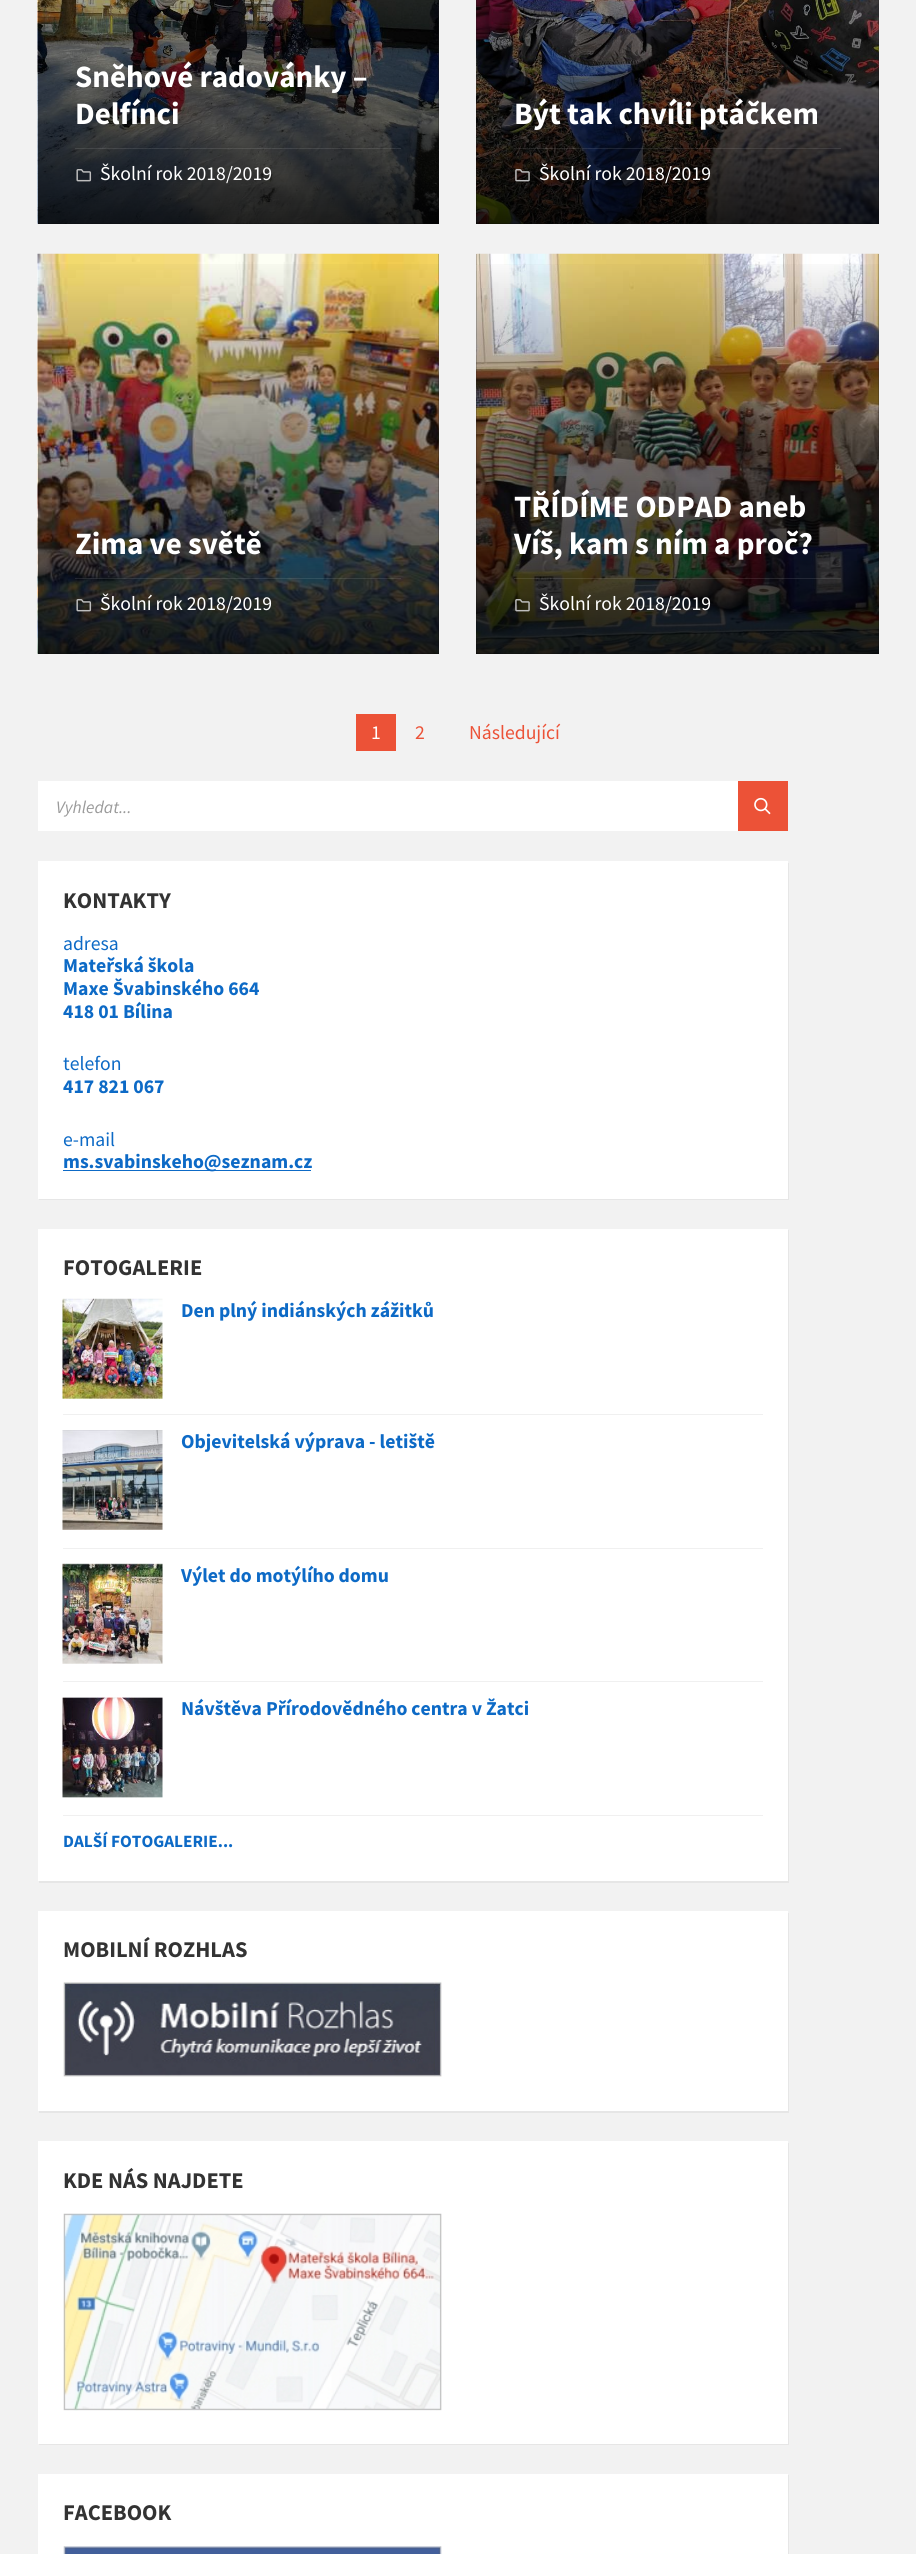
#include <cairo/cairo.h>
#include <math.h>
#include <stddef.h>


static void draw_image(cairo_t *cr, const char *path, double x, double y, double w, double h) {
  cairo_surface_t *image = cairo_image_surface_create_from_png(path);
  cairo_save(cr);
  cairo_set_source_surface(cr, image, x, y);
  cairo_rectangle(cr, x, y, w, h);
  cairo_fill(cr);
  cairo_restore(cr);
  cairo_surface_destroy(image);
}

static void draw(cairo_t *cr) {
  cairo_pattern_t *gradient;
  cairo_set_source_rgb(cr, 242 / 255.0, 242 / 255.0, 242 / 255.0);
  cairo_paint(cr);
  cairo_set_source_rgb(cr, 51 / 255.0, 51 / 255.0, 51 / 255.0);
  cairo_rectangle(cr, 38, 0, 401, 224);
  cairo_fill(cr);
  draw_image(cr, "images/1.png", 37, 0, 402, 224);
  gradient = cairo_pattern_create_linear(238, -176, 238, 224);
  cairo_pattern_add_color_stop_rgba(gradient, 0, 0, 0, 0, 0);
  cairo_pattern_add_color_stop_rgba(gradient, 1, 0, 0, 0, 0.85);
  cairo_set_source(cr, gradient);
  cairo_pattern_destroy(gradient);
  cairo_rectangle(cr, 38, 0, 401, 224);
  cairo_fill(cr);
  cairo_set_source_rgba(cr, 1, 1, 1, 0.1);
  cairo_rectangle(cr, 75, 148, 326, 1);
  cairo_fill(cr);
  draw_image(cr, "images/2.png", 76, 169, 16, 13);
  cairo_set_source_rgb(cr, 51 / 255.0, 51 / 255.0, 51 / 255.0);
  cairo_rectangle(cr, 476, 0, 403, 224);
  cairo_fill(cr);
  draw_image(cr, "images/3.png", 476, 0, 403, 224);
  gradient = cairo_pattern_create_linear(678, -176, 678, 224);
  cairo_pattern_add_color_stop_rgba(gradient, 0, 0, 0, 0, 0);
  cairo_pattern_add_color_stop_rgba(gradient, 1, 0, 0, 0, 0.85);
  cairo_set_source(cr, gradient);
  cairo_pattern_destroy(gradient);
  cairo_rectangle(cr, 476, 0, 403, 224);
  cairo_fill(cr);
  cairo_set_source_rgba(cr, 1, 1, 1, 0.1);
  cairo_rectangle(cr, 514, 148, 327, 1);
  cairo_fill(cr);
  draw_image(cr, "images/4.png", 515, 169, 15, 13);
  cairo_set_source_rgb(cr, 51 / 255.0, 51 / 255.0, 51 / 255.0);
  cairo_rectangle(cr, 38, 254, 401, 400);
  cairo_fill(cr);
  draw_image(cr, "images/5.png", 37, 253, 402, 401);
  gradient = cairo_pattern_create_linear(238, 254, 238, 654);
  cairo_pattern_add_color_stop_rgba(gradient, 0, 0, 0, 0, 0);
  cairo_pattern_add_color_stop_rgba(gradient, 1, 0, 0, 0, 0.85);
  cairo_set_source(cr, gradient);
  cairo_pattern_destroy(gradient);
  cairo_rectangle(cr, 38, 264, 401, 390);
  cairo_fill(cr);
  cairo_set_source_rgba(cr, 1, 1, 1, 0.1);
  cairo_rectangle(cr, 75, 578, 326, 1);
  cairo_fill(cr);
  draw_image(cr, "images/6.png", 76, 599, 16, 13);
  cairo_set_source_rgb(cr, 51 / 255.0, 51 / 255.0, 51 / 255.0);
  cairo_rectangle(cr, 476, 254, 403, 400);
  cairo_fill(cr);
  draw_image(cr, "images/7.png", 476, 253, 403, 401);
  gradient = cairo_pattern_create_linear(678, 254, 678, 654);
  cairo_pattern_add_color_stop_rgba(gradient, 0, 0, 0, 0, 0);
  cairo_pattern_add_color_stop_rgba(gradient, 1, 0, 0, 0, 0.85);
  cairo_set_source(cr, gradient);
  cairo_pattern_destroy(gradient);
  cairo_rectangle(cr, 476, 264, 403, 390);
  cairo_fill(cr);
  cairo_set_source_rgba(cr, 1, 1, 1, 0.1);
  cairo_rectangle(cr, 514, 578, 327, 1);
  cairo_fill(cr);
  draw_image(cr, "images/8.png", 515, 599, 15, 13);
  cairo_set_source_rgb(cr, 236 / 255.0, 82 / 255.0, 55 / 255.0);
  cairo_rectangle(cr, 356, 714, 40, 37);
  cairo_fill(cr);
  cairo_set_source_rgb(cr, 1, 1, 1);
  cairo_rectangle(cr, 38, 781, 700, 50);
  cairo_fill(cr);
  cairo_set_source_rgb(cr, 236 / 255.0, 82 / 255.0, 55 / 255.0);
  cairo_rectangle(cr, 738, 781, 50, 50);
  cairo_fill(cr);
  draw_image(cr, "images/9.png", 754, 797, 17, 18);
  cairo_set_source_rgb(cr, 230 / 255.0, 230 / 255.0, 230 / 255.0);
  cairo_new_path(cr);
  cairo_move_to(cr, 39, 1199);
  cairo_line_to(cr, 39, 1200);
  cairo_line_to(cr, 789, 1200);
  cairo_line_to(cr, 789, 863);
  cairo_line_to(cr, 788, 863);
  cairo_line_to(cr, 788, 1199);
  cairo_close_path(cr);
  cairo_fill(cr);
  cairo_set_source_rgb(cr, 1, 1, 1);
  cairo_rectangle(cr, 38, 861, 750, 338);
  cairo_fill(cr);
  cairo_set_source_rgb(cr, 13 / 255.0, 106 / 255.0, 198 / 255.0);
  cairo_rectangle(cr, 63, 1170, 248, 1);
  cairo_fill(cr);
  cairo_set_source_rgb(cr, 230 / 255.0, 230 / 255.0, 230 / 255.0);
  cairo_new_path(cr);
  cairo_move_to(cr, 39, 1881);
  cairo_line_to(cr, 39, 1883);
  cairo_line_to(cr, 789, 1883);
  cairo_line_to(cr, 789, 1230);
  cairo_line_to(cr, 788, 1230);
  cairo_line_to(cr, 788, 1881);
  cairo_close_path(cr);
  cairo_fill(cr);
  cairo_set_source_rgb(cr, 1, 1, 1);
  cairo_rectangle(cr, 38, 1229, 750, 652);
  cairo_fill(cr);
  draw_image(cr, "images/10.png", 62, 1298, 101, 101);
  cairo_set_source_rgb(cr, 240 / 255.0, 240 / 255.0, 240 / 255.0);
  cairo_rectangle(cr, 63, 1414, 700, 1);
  cairo_fill(cr);
  draw_image(cr, "images/11.png", 62, 1430, 101, 100);
  cairo_rectangle(cr, 63, 1548, 700, 1);
  cairo_fill(cr);
  draw_image(cr, "images/12.png", 62, 1563, 101, 101);
  cairo_rectangle(cr, 63, 1681, 700, 1);
  cairo_fill(cr);
  draw_image(cr, "images/13.png", 62, 1697, 101, 101);
  cairo_rectangle(cr, 63, 1815, 700, 1);
  cairo_fill(cr);
  cairo_set_source_rgb(cr, 230 / 255.0, 230 / 255.0, 230 / 255.0);
  cairo_new_path(cr);
  cairo_move_to(cr, 39, 2111);
  cairo_line_to(cr, 39, 2113);
  cairo_line_to(cr, 789, 2113);
  cairo_line_to(cr, 789, 1913);
  cairo_line_to(cr, 788, 1913);
  cairo_line_to(cr, 788, 2111);
  cairo_close_path(cr);
  cairo_fill(cr);
  cairo_set_source_rgb(cr, 1, 1, 1);
  cairo_rectangle(cr, 38, 1911, 750, 200);
  cairo_fill(cr);
  draw_image(cr, "images/14.png", 62, 1981, 380, 96);
  cairo_set_source_rgb(cr, 230 / 255.0, 230 / 255.0, 230 / 255.0);
  cairo_new_path(cr);
  cairo_move_to(cr, 39, 2444);
  cairo_line_to(cr, 39, 2445);
  cairo_line_to(cr, 789, 2445);
  cairo_line_to(cr, 789, 2143);
  cairo_line_to(cr, 788, 2143);
  cairo_line_to(cr, 788, 2444);
  cairo_close_path(cr);
  cairo_fill(cr);
  cairo_set_source_rgb(cr, 1, 1, 1);
  cairo_rectangle(cr, 38, 2141, 750, 303);
  cairo_fill(cr);
  draw_image(cr, "images/15.png", 63, 2213, 379, 198);
  cairo_set_source_rgb(cr, 230 / 255.0, 230 / 255.0, 230 / 255.0);
  cairo_new_path(cr);
  cairo_move_to(cr, 39, 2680);
  cairo_line_to(cr, 39, 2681);
  cairo_line_to(cr, 789, 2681);
  cairo_line_to(cr, 789, 2475);
  cairo_line_to(cr, 788, 2475);
  cairo_line_to(cr, 788, 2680);
  cairo_close_path(cr);
  cairo_fill(cr);
  cairo_set_source_rgb(cr, 1, 1, 1);
  cairo_rectangle(cr, 38, 2474, 750, 80);
  cairo_fill(cr);
  draw_image(cr, "images/16.png", 63, 2546, 379, 8);
  cairo_select_font_face(cr, "Source Sans Pro", CAIRO_FONT_SLANT_NORMAL, CAIRO_FONT_WEIGHT_BOLD);
  cairo_set_font_size(cr, 31);
  cairo_move_to(cr, 75, 87);
  cairo_show_text(cr, "Sněhové radovánky –");
  cairo_move_to(cr, 75, 124);
  cairo_show_text(cr, "Delfínci");
  cairo_select_font_face(cr, "Source Sans Pro", CAIRO_FONT_SLANT_NORMAL, CAIRO_FONT_WEIGHT_NORMAL);
  cairo_set_font_size(cr, 19.7);
  cairo_move_to(cr, 100, 180);
  cairo_show_text(cr, "Školní rok 2018/2019");
  cairo_select_font_face(cr, "Source Sans Pro", CAIRO_FONT_SLANT_NORMAL, CAIRO_FONT_WEIGHT_BOLD);
  cairo_set_font_size(cr, 31);
  cairo_move_to(cr, 514, 124);
  cairo_show_text(cr, "Být tak chvíli ptáčkem");
  cairo_select_font_face(cr, "Source Sans Pro", CAIRO_FONT_SLANT_NORMAL, CAIRO_FONT_WEIGHT_NORMAL);
  cairo_set_font_size(cr, 19.7);
  cairo_move_to(cr, 539, 180);
  cairo_show_text(cr, "Školní rok 2018/2019");
  cairo_select_font_face(cr, "Source Sans Pro", CAIRO_FONT_SLANT_NORMAL, CAIRO_FONT_WEIGHT_BOLD);
  cairo_set_font_size(cr, 31);
  cairo_move_to(cr, 75, 554);
  cairo_show_text(cr, "Zima ve světě");
  cairo_select_font_face(cr, "Source Sans Pro", CAIRO_FONT_SLANT_NORMAL, CAIRO_FONT_WEIGHT_NORMAL);
  cairo_set_font_size(cr, 19.7);
  cairo_move_to(cr, 100, 610);
  cairo_show_text(cr, "Školní rok 2018/2019");
  cairo_select_font_face(cr, "Source Sans Pro", CAIRO_FONT_SLANT_NORMAL, CAIRO_FONT_WEIGHT_BOLD);
  cairo_set_font_size(cr, 31);
  cairo_move_to(cr, 514, 517);
  cairo_show_text(cr, "TŘÍDÍME ODPAD aneb");
  cairo_move_to(cr, 514, 554);
  cairo_show_text(cr, "Víš, kam s ním a proč?");
  cairo_select_font_face(cr, "Source Sans Pro", CAIRO_FONT_SLANT_NORMAL, CAIRO_FONT_WEIGHT_NORMAL);
  cairo_set_font_size(cr, 19.7);
  cairo_move_to(cr, 539, 610);
  cairo_show_text(cr, "Školní rok 2018/2019");
  cairo_move_to(cr, 371, 739);
  cairo_show_text(cr, "1");
  cairo_set_source_rgb(cr, 236 / 255.0, 82 / 255.0, 55 / 255.0);
  cairo_move_to(cr, 415, 739);
  cairo_show_text(cr, "2");
  cairo_move_to(cr, 469, 739);
  cairo_show_text(cr, "Následující");
  cairo_select_font_face(cr, "Source Sans Pro", CAIRO_FONT_SLANT_ITALIC, CAIRO_FONT_WEIGHT_NORMAL);
  cairo_set_font_size(cr, 17.5);
  cairo_set_source_rgb(cr, 154 / 255.0, 154 / 255.0, 154 / 255.0);
  cairo_move_to(cr, 56, 813);
  cairo_show_text(cr, "Vyhledat...");
  cairo_select_font_face(cr, "Source Sans Pro", CAIRO_FONT_SLANT_NORMAL, CAIRO_FONT_WEIGHT_BOLD);
  cairo_set_font_size(cr, 22.5);
  cairo_set_source_rgb(cr, 51 / 255.0, 51 / 255.0, 51 / 255.0);
  cairo_move_to(cr, 63, 908);
  cairo_show_text(cr, "KONTAKTY");
  cairo_select_font_face(cr, "Source Sans Pro", CAIRO_FONT_SLANT_NORMAL, CAIRO_FONT_WEIGHT_NORMAL);
  cairo_set_font_size(cr, 19.7);
  cairo_set_source_rgb(cr, 13 / 255.0, 106 / 255.0, 198 / 255.0);
  cairo_move_to(cr, 63, 950);
  cairo_show_text(cr, "adresa");
  cairo_select_font_face(cr, "Source Sans Pro", CAIRO_FONT_SLANT_NORMAL, CAIRO_FONT_WEIGHT_BOLD);
  cairo_move_to(cr, 63, 972);
  cairo_show_text(cr, "Mateřská škola");
  cairo_move_to(cr, 63, 995);
  cairo_show_text(cr, "Maxe Švabinského 664");
  cairo_move_to(cr, 63, 1018);
  cairo_show_text(cr, "418 01 Bílina");
  cairo_select_font_face(cr, "Source Sans Pro", CAIRO_FONT_SLANT_NORMAL, CAIRO_FONT_WEIGHT_NORMAL);
  cairo_move_to(cr, 63, 1070);
  cairo_show_text(cr, "telefon");
  cairo_select_font_face(cr, "Source Sans Pro", CAIRO_FONT_SLANT_NORMAL, CAIRO_FONT_WEIGHT_BOLD);
  cairo_move_to(cr, 63, 1093);
  cairo_show_text(cr, "417 821 067");
  cairo_select_font_face(cr, "Source Sans Pro", CAIRO_FONT_SLANT_NORMAL, CAIRO_FONT_WEIGHT_NORMAL);
  cairo_move_to(cr, 63, 1146);
  cairo_show_text(cr, "e-mail");
  cairo_select_font_face(cr, "Source Sans Pro", CAIRO_FONT_SLANT_NORMAL, CAIRO_FONT_WEIGHT_BOLD);
  cairo_move_to(cr, 63, 1168);
  cairo_show_text(cr, "ms.svabinskeho@seznam.cz");
  cairo_set_font_size(cr, 22.5);
  cairo_set_source_rgb(cr, 51 / 255.0, 51 / 255.0, 51 / 255.0);
  cairo_move_to(cr, 63, 1275);
  cairo_show_text(cr, "FOTOGALERIE");
  cairo_set_font_size(cr, 19.7);
  cairo_set_source_rgb(cr, 13 / 255.0, 106 / 255.0, 198 / 255.0);
  cairo_move_to(cr, 181, 1317);
  cairo_show_text(cr, "Den plný indiánských zážitků");
  cairo_move_to(cr, 181, 1448);
  cairo_show_text(cr, "Objevitelská výprava - letiště");
  cairo_move_to(cr, 181, 1582);
  cairo_show_text(cr, "Výlet do motýlího domu");
  cairo_move_to(cr, 181, 1715);
  cairo_show_text(cr, "Návštěva Přírodovědného centra v Žatci");
  cairo_set_font_size(cr, 17.25);
  cairo_move_to(cr, 63, 1847);
  cairo_show_text(cr, "DALŠÍ FOTOGALERIE...");
  cairo_set_font_size(cr, 22.5);
  cairo_set_source_rgb(cr, 51 / 255.0, 51 / 255.0, 51 / 255.0);
  cairo_move_to(cr, 63, 1957);
  cairo_show_text(cr, "MOBILNÍ ROZHLAS");
  cairo_move_to(cr, 63, 2188);
  cairo_show_text(cr, "KDE NÁS NAJDETE");
  cairo_move_to(cr, 63, 2520);
  cairo_show_text(cr, "FACEBOOK");
}

int main(void) {
  cairo_surface_t *surface = cairo_image_surface_create(CAIRO_FORMAT_RGB24, 916, 2554);
  cairo_t *cr = cairo_create(surface);
  cairo_font_options_t *options = cairo_font_options_create();
  cairo_font_options_set_hint_metrics(options, CAIRO_HINT_METRICS_OFF);
  cairo_font_options_set_hint_style(options, CAIRO_HINT_STYLE_NONE);
  cairo_set_font_options(cr, options);
  cairo_set_miter_limit(cr, 4);
  draw(cr);
  cairo_surface_write_to_png(surface, "out.png");
  cairo_font_options_destroy(options);
  cairo_destroy(cr);
  cairo_surface_destroy(surface);
  return 0;
}
